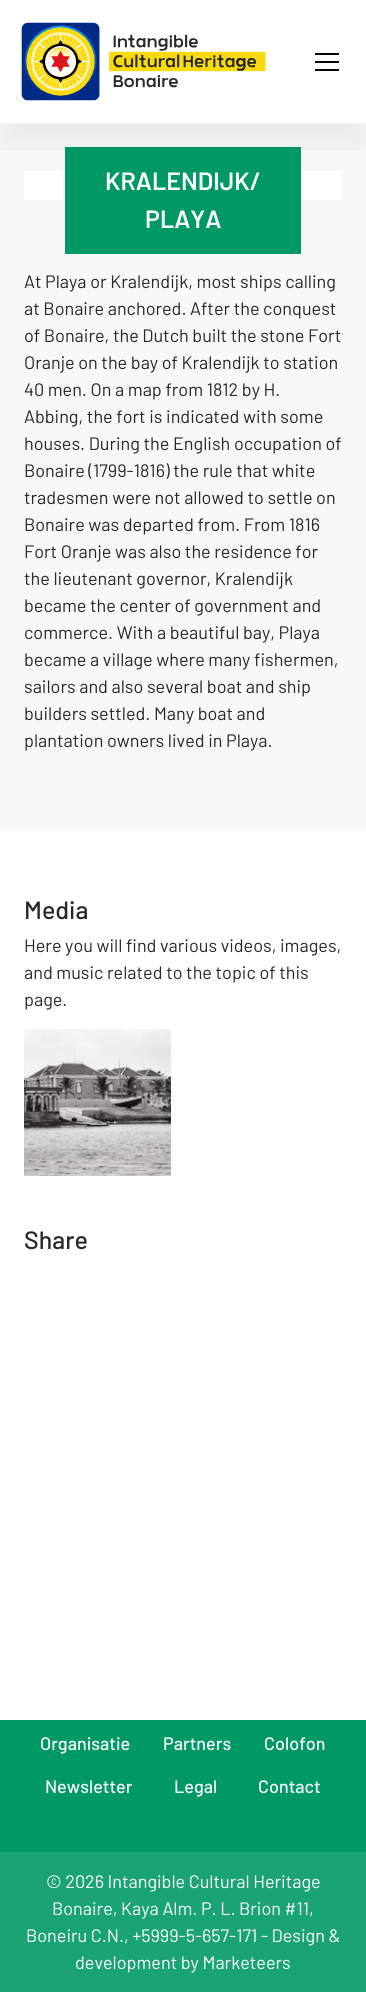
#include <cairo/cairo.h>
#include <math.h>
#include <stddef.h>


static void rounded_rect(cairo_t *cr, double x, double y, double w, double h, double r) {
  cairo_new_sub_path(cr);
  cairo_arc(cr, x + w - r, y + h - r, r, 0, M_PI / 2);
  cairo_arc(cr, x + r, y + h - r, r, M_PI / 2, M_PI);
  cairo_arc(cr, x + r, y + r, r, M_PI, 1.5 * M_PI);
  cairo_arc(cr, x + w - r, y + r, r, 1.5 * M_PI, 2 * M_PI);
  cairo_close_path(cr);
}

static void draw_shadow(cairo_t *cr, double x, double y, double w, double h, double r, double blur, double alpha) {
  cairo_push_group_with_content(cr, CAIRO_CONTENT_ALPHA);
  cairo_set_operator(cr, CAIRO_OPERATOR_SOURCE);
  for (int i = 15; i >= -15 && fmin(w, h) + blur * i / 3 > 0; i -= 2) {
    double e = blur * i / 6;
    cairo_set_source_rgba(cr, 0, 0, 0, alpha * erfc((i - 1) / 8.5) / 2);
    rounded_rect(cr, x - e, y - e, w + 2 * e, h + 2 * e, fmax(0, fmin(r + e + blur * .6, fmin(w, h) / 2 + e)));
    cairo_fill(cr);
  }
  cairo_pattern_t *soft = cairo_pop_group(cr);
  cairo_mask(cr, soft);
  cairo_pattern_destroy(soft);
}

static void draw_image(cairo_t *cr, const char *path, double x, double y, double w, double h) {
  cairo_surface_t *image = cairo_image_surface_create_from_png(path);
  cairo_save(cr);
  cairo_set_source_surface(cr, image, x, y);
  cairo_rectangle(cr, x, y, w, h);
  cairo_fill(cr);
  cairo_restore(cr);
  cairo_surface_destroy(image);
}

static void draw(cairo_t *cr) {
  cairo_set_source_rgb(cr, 1, 1, 1);
  cairo_paint(cr);
  cairo_set_source_rgb(cr, 248 / 255.0, 248 / 255.0, 248 / 255.0);
  cairo_rectangle(cr, 0, 123, 366, 707);
  cairo_fill(cr);
  cairo_set_source_rgb(cr, 1, 1, 1);
  cairo_rectangle(cr, 24, 171, 318, 29);
  cairo_fill(cr);
  cairo_set_source_rgb(cr, 0, 153 / 255.0, 102 / 255.0);
  cairo_rectangle(cr, 65, 147, 236, 107);
  cairo_fill(cr);
  cairo_save(cr);
  cairo_rectangle(cr, 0, 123, 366, 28);
  cairo_clip(cr);
  cairo_set_source_rgb(cr, 0, 0, 0);
  draw_shadow(cr, 0, 25, 366, 123, 0, 12.5, 0.05);
  cairo_restore(cr);
  draw_image(cr, "images/1.png", 21, 22, 245, 79);
  draw_image(cr, "images/2.png", 315, 53, 24, 18);
  draw_image(cr, "images/3.png", 24, 1029, 147, 147);
  cairo_rectangle(cr, 0, 1720, 366, 132);
  cairo_fill(cr);
  cairo_set_source_rgb(cr, 26 / 255.0, 163 / 255.0, 117 / 255.0);
  cairo_rectangle(cr, 0, 1852, 366, 140);
  cairo_fill(cr);
  cairo_select_font_face(cr, "Barlow SemiBold", CAIRO_FONT_SLANT_NORMAL, CAIRO_FONT_WEIGHT_NORMAL);
  cairo_set_font_size(cr, 25);
  cairo_set_source_rgb(cr, 1, 1, 1);
  cairo_move_to(cr, 105, 190);
  cairo_show_text(cr, "KRALENDIJK/");
  cairo_move_to(cr, 145, 228);
  cairo_show_text(cr, "PLAYA");
  cairo_select_font_face(cr, "Barlow", CAIRO_FONT_SLANT_NORMAL, CAIRO_FONT_WEIGHT_NORMAL);
  cairo_set_font_size(cr, 18);
  cairo_set_source_rgb(cr, 40 / 255.0, 40 / 255.0, 40 / 255.0);
  cairo_move_to(cr, 24, 288);
  cairo_show_text(cr, "At Playa or Kralendijk, most ships calling");
  cairo_move_to(cr, 24, 315);
  cairo_show_text(cr, "at Bonaire anchored. After the conquest");
  cairo_move_to(cr, 24, 342);
  cairo_show_text(cr, "of Bonaire, the Dutch built the stone Fort");
  cairo_move_to(cr, 24, 369);
  cairo_show_text(cr, "Oranje on the bay of Kralendijk to station");
  cairo_move_to(cr, 24, 396);
  cairo_show_text(cr, "40 men. On a map from 1812 by H.");
  cairo_move_to(cr, 24, 423);
  cairo_show_text(cr, "Abbing, the fort is indicated with some");
  cairo_move_to(cr, 24, 450);
  cairo_show_text(cr, "houses. During the English occupation of");
  cairo_move_to(cr, 24, 477);
  cairo_show_text(cr, "Bonaire (1799-1816) the rule that white");
  cairo_move_to(cr, 24, 504);
  cairo_show_text(cr, "tradesmen were not allowed to settle on");
  cairo_move_to(cr, 24, 531);
  cairo_show_text(cr, "Bonaire was departed from. From 1816");
  cairo_move_to(cr, 24, 558);
  cairo_show_text(cr, "Fort Oranje was also the residence for");
  cairo_move_to(cr, 24, 585);
  cairo_show_text(cr, "the lieutenant governor, Kralendijk");
  cairo_move_to(cr, 24, 612);
  cairo_show_text(cr, "became the center of government and");
  cairo_move_to(cr, 24, 639);
  cairo_show_text(cr, "commerce. With a beautiful bay, Playa");
  cairo_move_to(cr, 24, 666);
  cairo_show_text(cr, "became a village where many fishermen,");
  cairo_move_to(cr, 24, 693);
  cairo_show_text(cr, "sailors and also several boat and ship");
  cairo_move_to(cr, 24, 720);
  cairo_show_text(cr, "builders settled. Many boat and");
  cairo_move_to(cr, 24, 747);
  cairo_show_text(cr, "plantation owners lived in Playa.");
  cairo_select_font_face(cr, "Barlow Medium", CAIRO_FONT_SLANT_NORMAL, CAIRO_FONT_WEIGHT_NORMAL);
  cairo_set_font_size(cr, 25);
  cairo_move_to(cr, 24, 919);
  cairo_show_text(cr, "Media");
  cairo_select_font_face(cr, "Barlow", CAIRO_FONT_SLANT_NORMAL, CAIRO_FONT_WEIGHT_NORMAL);
  cairo_set_font_size(cr, 18);
  cairo_move_to(cr, 24, 952);
  cairo_show_text(cr, "Here you will find various videos, images,");
  cairo_move_to(cr, 24, 979);
  cairo_show_text(cr, "and music related to the topic of this");
  cairo_move_to(cr, 24, 1006);
  cairo_show_text(cr, "page.");
  cairo_select_font_face(cr, "Barlow Medium", CAIRO_FONT_SLANT_NORMAL, CAIRO_FONT_WEIGHT_NORMAL);
  cairo_set_font_size(cr, 25);
  cairo_move_to(cr, 24, 1249);
  cairo_show_text(cr, "Share");
  cairo_set_font_size(cr, 18);
  cairo_set_source_rgb(cr, 1, 1, 1);
  cairo_move_to(cr, 40, 1750);
  cairo_show_text(cr, "Organisatie");
  cairo_move_to(cr, 163, 1750);
  cairo_show_text(cr, "Partners");
  cairo_move_to(cr, 264, 1750);
  cairo_show_text(cr, "Colofon");
  cairo_move_to(cr, 45, 1793);
  cairo_show_text(cr, "Newsletter");
  cairo_move_to(cr, 174, 1793);
  cairo_show_text(cr, "Legal");
  cairo_move_to(cr, 258, 1793);
  cairo_show_text(cr, "Contact");
  cairo_select_font_face(cr, "Barlow", CAIRO_FONT_SLANT_NORMAL, CAIRO_FONT_WEIGHT_NORMAL);
  cairo_move_to(cr, 46, 1888);
  cairo_show_text(cr, "© 2026 Intangible Cultural Heritage");
  cairo_move_to(cr, 52, 1915);
  cairo_show_text(cr, "Bonaire, Kaya Alm. P. L. Brion #11,");
  cairo_move_to(cr, 26, 1942);
  cairo_show_text(cr, "Boneiru C.N., +5999-5-657-171 - Design &");
  cairo_move_to(cr, 75, 1969);
  cairo_show_text(cr, "development by Marketeers");
}

int main(void) {
  cairo_surface_t *surface = cairo_image_surface_create(CAIRO_FORMAT_RGB24, 366, 1992);
  cairo_t *cr = cairo_create(surface);
  cairo_font_options_t *options = cairo_font_options_create();
  cairo_font_options_set_hint_metrics(options, CAIRO_HINT_METRICS_OFF);
  cairo_font_options_set_hint_style(options, CAIRO_HINT_STYLE_NONE);
  cairo_set_font_options(cr, options);
  cairo_set_miter_limit(cr, 4);
  draw(cr);
  cairo_surface_write_to_png(surface, "out.png");
  cairo_font_options_destroy(options);
  cairo_destroy(cr);
  cairo_surface_destroy(surface);
  return 0;
}
